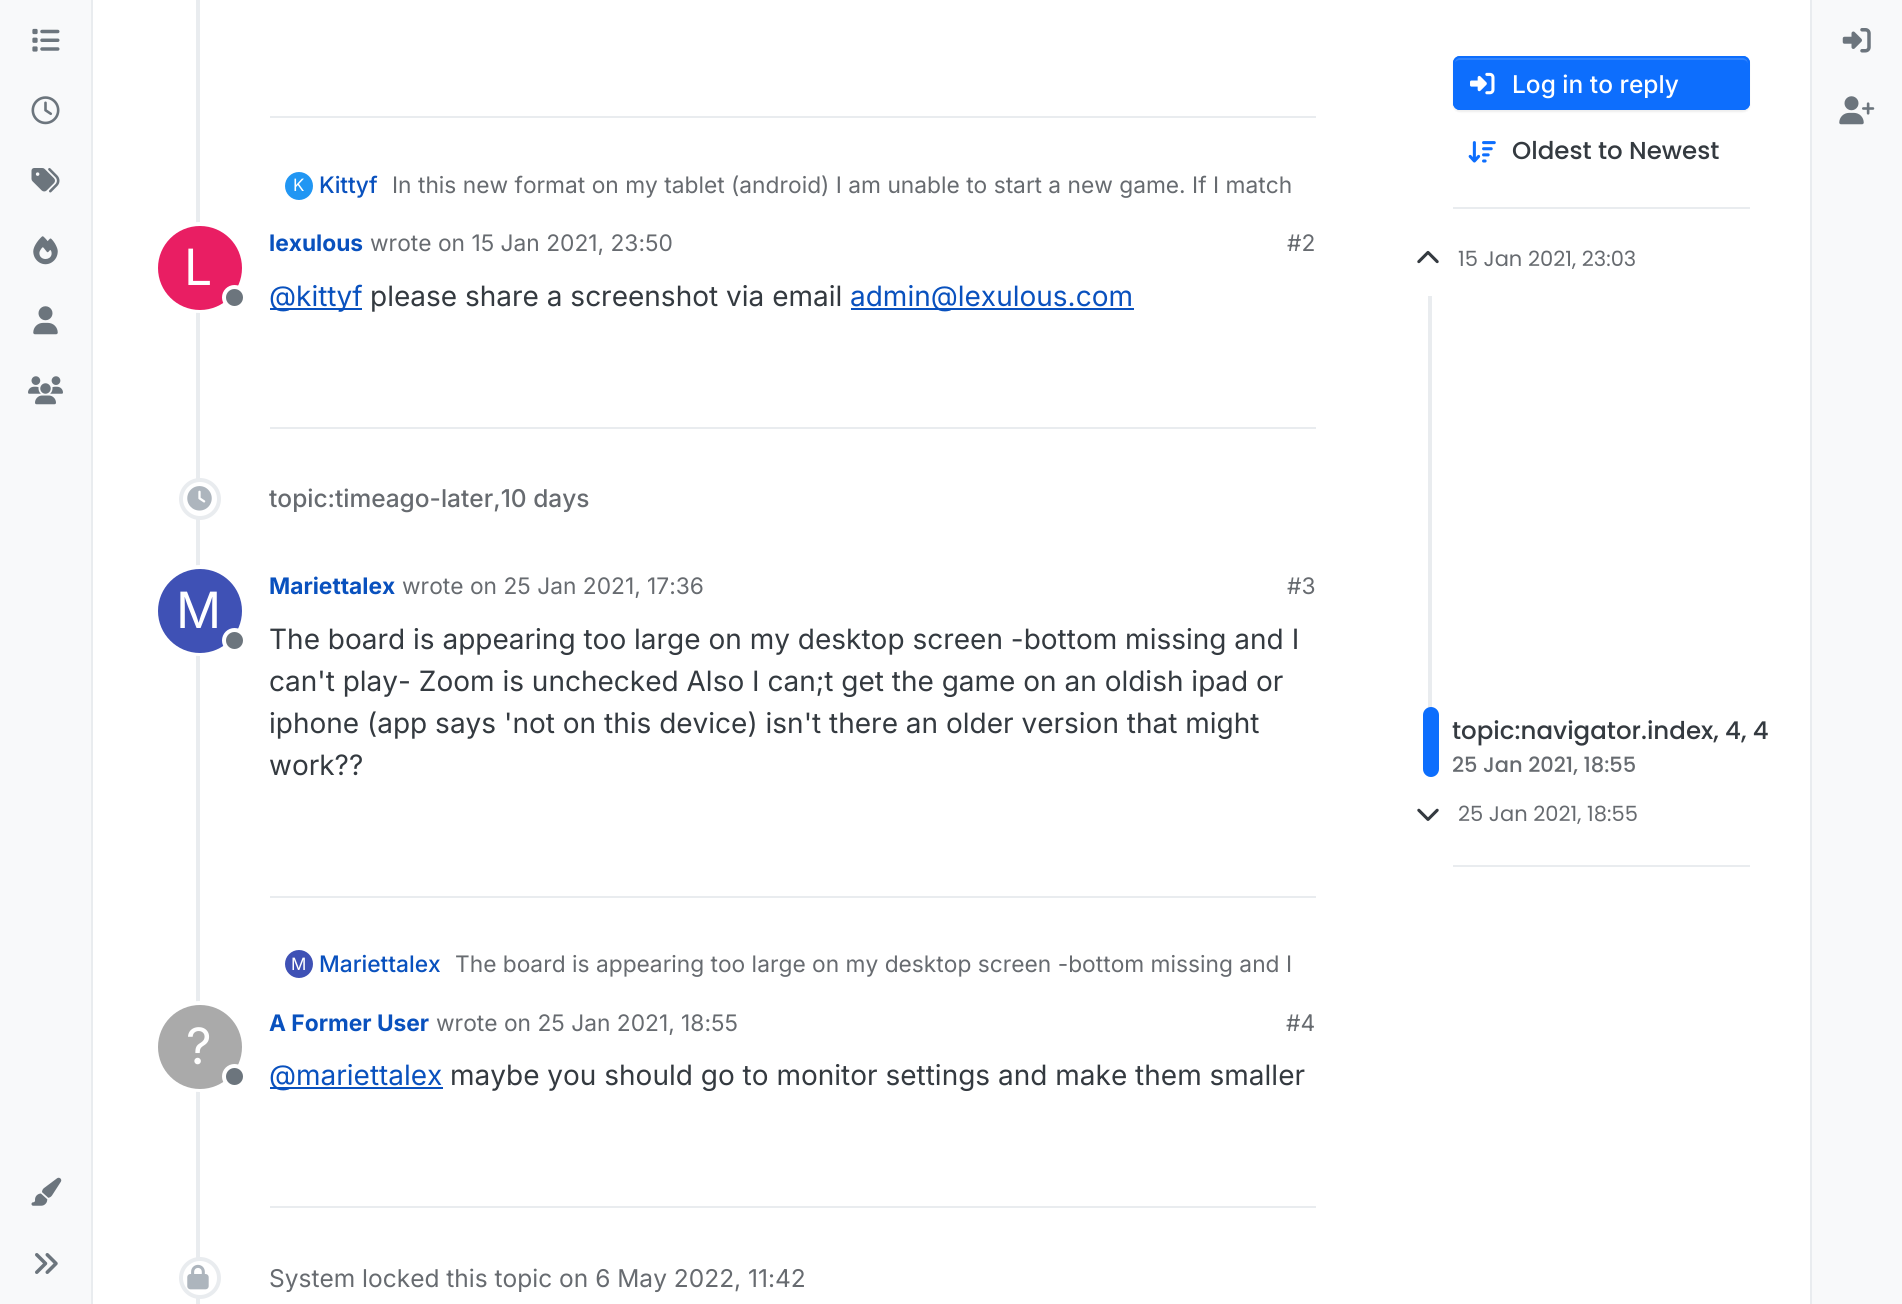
#include <cairo/cairo.h>
#include <math.h>
#include <stddef.h>


static void rounded_rect(cairo_t *cr, double x, double y, double w, double h, double r) {
  cairo_new_sub_path(cr);
  cairo_arc(cr, x + w - r, y + h - r, r, 0, M_PI / 2);
  cairo_arc(cr, x + r, y + h - r, r, M_PI / 2, M_PI);
  cairo_arc(cr, x + r, y + r, r, M_PI, 1.5 * M_PI);
  cairo_arc(cr, x + w - r, y + r, r, 1.5 * M_PI, 2 * M_PI);
  cairo_close_path(cr);
}

static void draw_shadow(cairo_t *cr, double x, double y, double w, double h, double r, double blur, double alpha) {
  cairo_push_group_with_content(cr, CAIRO_CONTENT_ALPHA);
  cairo_set_operator(cr, CAIRO_OPERATOR_SOURCE);
  for (int i = 15; i >= -15 && fmin(w, h) + blur * i / 3 > 0; i -= 2) {
    double e = blur * i / 6;
    cairo_set_source_rgba(cr, 0, 0, 0, alpha * erfc((i - 1) / 8.5) / 2);
    rounded_rect(cr, x - e, y - e, w + 2 * e, h + 2 * e, fmax(0, fmin(r + e + blur * .6, fmin(w, h) / 2 + e)));
    cairo_fill(cr);
  }
  cairo_pattern_t *soft = cairo_pop_group(cr);
  cairo_mask(cr, soft);
  cairo_pattern_destroy(soft);
}

static void draw_image(cairo_t *cr, const char *path, double x, double y, double w, double h) {
  cairo_surface_t *image = cairo_image_surface_create_from_png(path);
  cairo_save(cr);
  cairo_set_source_surface(cr, image, x, y);
  cairo_rectangle(cr, x, y, w, h);
  cairo_fill(cr);
  cairo_restore(cr);
  cairo_surface_destroy(image);
}

static void draw(cairo_t *cr) {
  cairo_set_source_rgb(cr, 1, 1, 1);
  cairo_paint(cr);
  cairo_set_source_rgb(cr, 248 / 255.0, 249 / 255.0, 250 / 255.0);
  cairo_rectangle(cr, 0, 0, 91, 1304);
  cairo_fill(cr);
  cairo_set_source_rgb(cr, 233 / 255.0, 236 / 255.0, 239 / 255.0);
  cairo_rectangle(cr, 91, 0, 2, 1304);
  cairo_fill(cr);
  draw_image(cr, "images/1.png", 32, 28, 28, 24);
  draw_image(cr, "images/2.png", 31, 96, 29, 29);
  draw_image(cr, "images/3.png", 31, 168, 29, 25);
  draw_image(cr, "images/4.png", 33, 236, 25, 29);
  draw_image(cr, "images/5.png", 33, 306, 25, 29);
  draw_image(cr, "images/6.png", 28, 376, 35, 29);
  draw_image(cr, "images/7.png", 31, 1177, 31, 29);
  draw_image(cr, "images/8.png", 35, 1253, 23, 21);
  cairo_rectangle(cr, 196, 0, 4, 1304);
  cairo_fill(cr);
  cairo_rectangle(cr, 270, 116, 1046, 2);
  cairo_fill(cr);
  cairo_set_source_rgb(cr, 33 / 255.0, 150 / 255.0, 243 / 255.0);
  cairo_arc(cr, 299, 186, 14, 0, 2 * M_PI);
  cairo_fill(cr);
  cairo_arc(cr, 199.5, 267.5, 43.5, 0, 2 * M_PI);
  cairo_set_source_rgb(cr, 1, 1, 1);
  cairo_set_line_width(cr, 4);
  cairo_stroke(cr);
  cairo_set_source_rgb(cr, 233 / 255.0, 30 / 255.0, 99 / 255.0);
  cairo_arc(cr, 200, 268, 42, 0, 2 * M_PI);
  cairo_fill(cr);
  cairo_set_source_rgb(cr, 108 / 255.0, 117 / 255.0, 125 / 255.0);
  cairo_arc(cr, 234.5, 297.5, 10.5, 0, 2 * M_PI);
  cairo_fill_preserve(cr);
  cairo_set_source_rgb(cr, 1, 1, 1);
  cairo_stroke(cr);
  cairo_set_source_rgb(cr, 9 / 255.0, 81 / 255.0, 190 / 255.0);
  cairo_rectangle(cr, 270, 308, 92, 2);
  cairo_fill(cr);
  cairo_rectangle(cr, 851, 308, 283, 2);
  cairo_fill(cr);
  cairo_set_source_rgb(cr, 233 / 255.0, 236 / 255.0, 239 / 255.0);
  cairo_rectangle(cr, 270, 427, 1046, 2);
  cairo_fill(cr);
  cairo_set_source_rgb(cr, 1, 1, 1);
  cairo_arc(cr, 200, 499, 19, 0, 2 * M_PI);
  cairo_fill_preserve(cr);
  cairo_set_source_rgb(cr, 233 / 255.0, 236 / 255.0, 239 / 255.0);
  cairo_stroke(cr);
  draw_image(cr, "images/9.png", 187, 486, 25, 25);
  cairo_arc(cr, 199.5, 610.5, 43.5, 0, 2 * M_PI);
  cairo_set_source_rgb(cr, 1, 1, 1);
  cairo_stroke(cr);
  cairo_set_source_rgb(cr, 63 / 255.0, 81 / 255.0, 181 / 255.0);
  cairo_arc(cr, 200, 611, 42, 0, 2 * M_PI);
  cairo_fill(cr);
  cairo_set_source_rgb(cr, 108 / 255.0, 117 / 255.0, 125 / 255.0);
  cairo_arc(cr, 234.5, 640.5, 10.5, 0, 2 * M_PI);
  cairo_fill_preserve(cr);
  cairo_set_source_rgb(cr, 1, 1, 1);
  cairo_stroke(cr);
  cairo_set_source_rgb(cr, 233 / 255.0, 236 / 255.0, 239 / 255.0);
  cairo_rectangle(cr, 270, 896, 1046, 2);
  cairo_fill(cr);
  cairo_set_source_rgb(cr, 63 / 255.0, 81 / 255.0, 181 / 255.0);
  cairo_arc(cr, 299, 964, 14, 0, 2 * M_PI);
  cairo_fill(cr);
  cairo_arc(cr, 199.5, 1046.5, 43.5, 0, 2 * M_PI);
  cairo_set_source_rgb(cr, 1, 1, 1);
  cairo_stroke(cr);
  cairo_set_source_rgb(cr, 170 / 255.0, 170 / 255.0, 170 / 255.0);
  cairo_arc(cr, 200, 1047, 42, 0, 2 * M_PI);
  cairo_fill(cr);
  cairo_set_source_rgb(cr, 108 / 255.0, 117 / 255.0, 125 / 255.0);
  cairo_arc(cr, 234.5, 1076.5, 10.5, 0, 2 * M_PI);
  cairo_fill_preserve(cr);
  cairo_set_source_rgb(cr, 1, 1, 1);
  cairo_stroke(cr);
  cairo_set_source_rgb(cr, 9 / 255.0, 81 / 255.0, 190 / 255.0);
  cairo_rectangle(cr, 270, 1087, 173, 2);
  cairo_fill(cr);
  cairo_set_source_rgb(cr, 233 / 255.0, 236 / 255.0, 239 / 255.0);
  cairo_rectangle(cr, 270, 1206, 1046, 2);
  cairo_fill(cr);
  cairo_set_source_rgb(cr, 1, 1, 1);
  cairo_arc(cr, 200, 1278, 19, 0, 2 * M_PI);
  cairo_fill_preserve(cr);
  cairo_set_source_rgb(cr, 233 / 255.0, 236 / 255.0, 239 / 255.0);
  cairo_stroke(cr);
  draw_image(cr, "images/10.png", 187, 1264, 22, 26);
  cairo_set_source_rgb(cr, 0, 0, 0);
  draw_shadow(cr, 1453, 58, 297, 54, 7, 1, 0.07);
  cairo_set_source_rgb(cr, 13 / 255.0, 110 / 255.0, 253 / 255.0);
  rounded_rect(cr, 1453, 56, 297, 54, 7);
  cairo_fill(cr);
  cairo_set_source_rgb(cr, 49 / 255.0, 132 / 255.0, 253 / 255.0);
  cairo_new_path(cr);
  cairo_move_to(cr, 1460, 60);
  cairo_line_to(cr, 1743, 60);
  cairo_curve_to(cr, 1746, 60, 1748, 62, 1748, 65);
  cairo_curve_to(cr, 1748, 62, 1747, 58, 1743, 58);
  cairo_line_to(cr, 1458, 58);
  cairo_curve_to(cr, 1454, 59, 1454, 62, 1454, 65);
  cairo_curve_to(cr, 1454, 62, 1457, 60, 1460, 60);
  cairo_close_path(cr);
  cairo_fill(cr);
  rounded_rect(cr, 1454, 57, 295, 52, 6);
  cairo_set_source_rgb(cr, 13 / 255.0, 110 / 255.0, 253 / 255.0);
  cairo_set_line_width(cr, 2);
  cairo_stroke(cr);
  draw_image(cr, "images/11.png", 1470, 72, 25, 23);
  draw_image(cr, "images/12.png", 1468, 141, 28, 22);
  cairo_set_source_rgb(cr, 233 / 255.0, 236 / 255.0, 239 / 255.0);
  cairo_rectangle(cr, 1453, 207, 297, 2);
  cairo_fill(cr);
  draw_image(cr, "images/13.png", 1417, 250, 22, 14);
  cairo_rectangle(cr, 1428, 296, 4, 481);
  cairo_fill(cr);
  cairo_set_source_rgb(cr, 13 / 255.0, 110 / 255.0, 253 / 255.0);
  rounded_rect(cr, 1423, 707, 16, 70, 8);
  cairo_fill(cr);
  draw_image(cr, "images/14.png", 1417, 808, 22, 13);
  cairo_set_source_rgb(cr, 233 / 255.0, 236 / 255.0, 239 / 255.0);
  cairo_rectangle(cr, 1453, 865, 297, 2);
  cairo_fill(cr);
  cairo_set_source_rgb(cr, 248 / 255.0, 249 / 255.0, 250 / 255.0);
  cairo_rectangle(cr, 1812, 0, 90, 1304);
  cairo_fill(cr);
  cairo_set_source_rgb(cr, 233 / 255.0, 236 / 255.0, 239 / 255.0);
  cairo_rectangle(cr, 1810, 0, 2, 1304);
  cairo_fill(cr);
  draw_image(cr, "images/15.png", 1842, 28, 29, 25);
  draw_image(cr, "images/16.png", 1839, 96, 36, 29);
  cairo_select_font_face(cr, "Inter", CAIRO_FONT_SLANT_NORMAL, CAIRO_FONT_WEIGHT_NORMAL);
  cairo_set_font_size(cr, 17);
  cairo_set_source_rgb(cr, 1, 1, 1);
  cairo_move_to(cr, 293, 191);
  cairo_show_text(cr, "K");
  cairo_select_font_face(cr, "Inter Medium", CAIRO_FONT_SLANT_NORMAL, CAIRO_FONT_WEIGHT_NORMAL);
  cairo_set_font_size(cr, 22.75);
  cairo_set_source_rgb(cr, 9 / 255.0, 81 / 255.0, 190 / 255.0);
  cairo_move_to(cr, 319, 193);
  cairo_show_text(cr, "Kittyf");
  cairo_select_font_face(cr, "Inter", CAIRO_FONT_SLANT_NORMAL, CAIRO_FONT_WEIGHT_NORMAL);
  cairo_set_source_rgb(cr, 103 / 255.0, 107 / 255.0, 112 / 255.0);
  cairo_move_to(cr, 392, 193);
  cairo_show_text(cr, "In this new format on my tablet (android) I am unable to start a new game. If I match");
  cairo_set_font_size(cr, 50);
  cairo_set_source_rgb(cr, 1, 1, 1);
  cairo_move_to(cr, 184, 285);
  cairo_show_text(cr, "L");
  cairo_select_font_face(cr, "Inter", CAIRO_FONT_SLANT_NORMAL, CAIRO_FONT_WEIGHT_BOLD);
  cairo_set_font_size(cr, 22.75);
  cairo_set_source_rgb(cr, 9 / 255.0, 81 / 255.0, 190 / 255.0);
  cairo_move_to(cr, 269, 251);
  cairo_show_text(cr, "lexulous");
  cairo_select_font_face(cr, "Inter", CAIRO_FONT_SLANT_NORMAL, CAIRO_FONT_WEIGHT_NORMAL);
  cairo_set_source_rgb(cr, 103 / 255.0, 107 / 255.0, 112 / 255.0);
  cairo_move_to(cr, 370, 251);
  cairo_show_text(cr, "wrote on 15 Jan 2021, 23:50");
  cairo_move_to(cr, 1287, 251);
  cairo_show_text(cr, "#2");
  cairo_set_font_size(cr, 28);
  cairo_set_source_rgb(cr, 9 / 255.0, 81 / 255.0, 190 / 255.0);
  cairo_move_to(cr, 269, 306);
  cairo_show_text(cr, "@kittyf");
  cairo_set_source_rgb(cr, 52 / 255.0, 58 / 255.0, 64 / 255.0);
  cairo_move_to(cr, 370, 306);
  cairo_show_text(cr, "please share a screenshot via email");
  cairo_set_source_rgb(cr, 9 / 255.0, 81 / 255.0, 190 / 255.0);
  cairo_move_to(cr, 850, 306);
  cairo_show_text(cr, "admin@lexulous.com");
  cairo_select_font_face(cr, "Inter Medium", CAIRO_FONT_SLANT_NORMAL, CAIRO_FONT_WEIGHT_NORMAL);
  cairo_set_font_size(cr, 24.5);
  cairo_set_source_rgb(cr, 103 / 255.0, 107 / 255.0, 112 / 255.0);
  cairo_move_to(cr, 269, 507);
  cairo_show_text(cr, "topic:timeago-later,10 days");
  cairo_select_font_face(cr, "Inter", CAIRO_FONT_SLANT_NORMAL, CAIRO_FONT_WEIGHT_NORMAL);
  cairo_set_font_size(cr, 50);
  cairo_set_source_rgb(cr, 1, 1, 1);
  cairo_move_to(cr, 176, 628);
  cairo_show_text(cr, "M");
  cairo_select_font_face(cr, "Inter", CAIRO_FONT_SLANT_NORMAL, CAIRO_FONT_WEIGHT_BOLD);
  cairo_set_font_size(cr, 22.75);
  cairo_set_source_rgb(cr, 9 / 255.0, 81 / 255.0, 190 / 255.0);
  cairo_move_to(cr, 269, 594);
  cairo_show_text(cr, "Mariettalex");
  cairo_select_font_face(cr, "Inter", CAIRO_FONT_SLANT_NORMAL, CAIRO_FONT_WEIGHT_NORMAL);
  cairo_set_source_rgb(cr, 103 / 255.0, 107 / 255.0, 112 / 255.0);
  cairo_move_to(cr, 402, 594);
  cairo_show_text(cr, "wrote on 25 Jan 2021, 17:36");
  cairo_move_to(cr, 1287, 594);
  cairo_show_text(cr, "#3");
  cairo_set_font_size(cr, 28);
  cairo_set_source_rgb(cr, 52 / 255.0, 58 / 255.0, 64 / 255.0);
  cairo_move_to(cr, 269, 649);
  cairo_show_text(cr, "The board is appearing too large on my desktop screen -bottom missing and I");
  cairo_move_to(cr, 269, 691);
  cairo_show_text(cr, "can't play- Zoom is unchecked Also I can;t get the game on an oldish ipad or");
  cairo_move_to(cr, 269, 733);
  cairo_show_text(cr, "iphone (app says 'not on this device) isn't there an older version that might");
  cairo_move_to(cr, 269, 775);
  cairo_show_text(cr, "work?\077");
  cairo_set_font_size(cr, 17);
  cairo_set_source_rgb(cr, 1, 1, 1);
  cairo_move_to(cr, 291, 970);
  cairo_show_text(cr, "M");
  cairo_select_font_face(cr, "Inter Medium", CAIRO_FONT_SLANT_NORMAL, CAIRO_FONT_WEIGHT_NORMAL);
  cairo_set_font_size(cr, 22.75);
  cairo_set_source_rgb(cr, 9 / 255.0, 81 / 255.0, 190 / 255.0);
  cairo_move_to(cr, 319, 972);
  cairo_show_text(cr, "Mariettalex");
  cairo_select_font_face(cr, "Inter", CAIRO_FONT_SLANT_NORMAL, CAIRO_FONT_WEIGHT_NORMAL);
  cairo_set_source_rgb(cr, 103 / 255.0, 107 / 255.0, 112 / 255.0);
  cairo_move_to(cr, 455, 972);
  cairo_show_text(cr, "The board is appearing too large on my desktop screen -bottom missing and I");
  cairo_set_font_size(cr, 50);
  cairo_set_source_rgb(cr, 1, 1, 1);
  cairo_move_to(cr, 186, 1064);
  cairo_show_text(cr, "?");
  cairo_select_font_face(cr, "Inter", CAIRO_FONT_SLANT_NORMAL, CAIRO_FONT_WEIGHT_BOLD);
  cairo_set_font_size(cr, 22.75);
  cairo_set_source_rgb(cr, 9 / 255.0, 81 / 255.0, 190 / 255.0);
  cairo_move_to(cr, 269, 1031);
  cairo_show_text(cr, "A Former User");
  cairo_select_font_face(cr, "Inter", CAIRO_FONT_SLANT_NORMAL, CAIRO_FONT_WEIGHT_NORMAL);
  cairo_set_source_rgb(cr, 103 / 255.0, 107 / 255.0, 112 / 255.0);
  cairo_move_to(cr, 436, 1031);
  cairo_show_text(cr, "wrote on 25 Jan 2021, 18:55");
  cairo_move_to(cr, 1286, 1031);
  cairo_show_text(cr, "#4");
  cairo_set_font_size(cr, 28);
  cairo_set_source_rgb(cr, 9 / 255.0, 81 / 255.0, 190 / 255.0);
  cairo_move_to(cr, 269, 1085);
  cairo_show_text(cr, "@mariettalex");
  cairo_set_source_rgb(cr, 52 / 255.0, 58 / 255.0, 64 / 255.0);
  cairo_move_to(cr, 450, 1085);
  cairo_show_text(cr, "maybe you should go to monitor settings and make them smaller");
  cairo_set_font_size(cr, 24.5);
  cairo_set_source_rgb(cr, 103 / 255.0, 107 / 255.0, 112 / 255.0);
  cairo_move_to(cr, 269, 1287);
  cairo_show_text(cr, "System locked this topic on 6 May 2022, 11:42");
  cairo_select_font_face(cr, "Inter Medium", CAIRO_FONT_SLANT_NORMAL, CAIRO_FONT_WEIGHT_NORMAL);
  cairo_set_source_rgb(cr, 1, 1, 1);
  cairo_move_to(cr, 1512, 93);
  cairo_show_text(cr, "Log in to reply");
  cairo_select_font_face(cr, "Poppins Medium", CAIRO_FONT_SLANT_NORMAL, CAIRO_FONT_WEIGHT_NORMAL);
  cairo_set_source_rgb(cr, 52 / 255.0, 58 / 255.0, 64 / 255.0);
  cairo_move_to(cr, 1512, 159);
  cairo_show_text(cr, "Oldest to Newest");
  cairo_select_font_face(cr, "Poppins", CAIRO_FONT_SLANT_NORMAL, CAIRO_FONT_WEIGHT_NORMAL);
  cairo_set_font_size(cr, 21);
  cairo_set_source_rgb(cr, 103 / 255.0, 107 / 255.0, 112 / 255.0);
  cairo_move_to(cr, 1458, 266);
  cairo_show_text(cr, "15 Jan 2021, 23:03");
  cairo_select_font_face(cr, "Poppins Medium", CAIRO_FONT_SLANT_NORMAL, CAIRO_FONT_WEIGHT_NORMAL);
  cairo_set_font_size(cr, 24.5);
  cairo_set_source_rgb(cr, 52 / 255.0, 58 / 255.0, 64 / 255.0);
  cairo_move_to(cr, 1452, 739);
  cairo_show_text(cr, "topic:navigator.index, 4, 4");
  cairo_set_font_size(cr, 21);
  cairo_set_source_rgb(cr, 103 / 255.0, 107 / 255.0, 112 / 255.0);
  cairo_move_to(cr, 1452, 772);
  cairo_show_text(cr, "25 Jan 2021, 18:55");
  cairo_select_font_face(cr, "Poppins", CAIRO_FONT_SLANT_NORMAL, CAIRO_FONT_WEIGHT_NORMAL);
  cairo_move_to(cr, 1458, 821);
  cairo_show_text(cr, "25 Jan 2021, 18:55");
}

int main(void) {
  cairo_surface_t *surface = cairo_image_surface_create(CAIRO_FORMAT_RGB24, 1902, 1304);
  cairo_t *cr = cairo_create(surface);
  cairo_font_options_t *options = cairo_font_options_create();
  cairo_font_options_set_hint_metrics(options, CAIRO_HINT_METRICS_OFF);
  cairo_font_options_set_hint_style(options, CAIRO_HINT_STYLE_NONE);
  cairo_set_font_options(cr, options);
  cairo_set_miter_limit(cr, 4);
  draw(cr);
  cairo_surface_write_to_png(surface, "out.png");
  cairo_font_options_destroy(options);
  cairo_destroy(cr);
  cairo_surface_destroy(surface);
  return 0;
}
